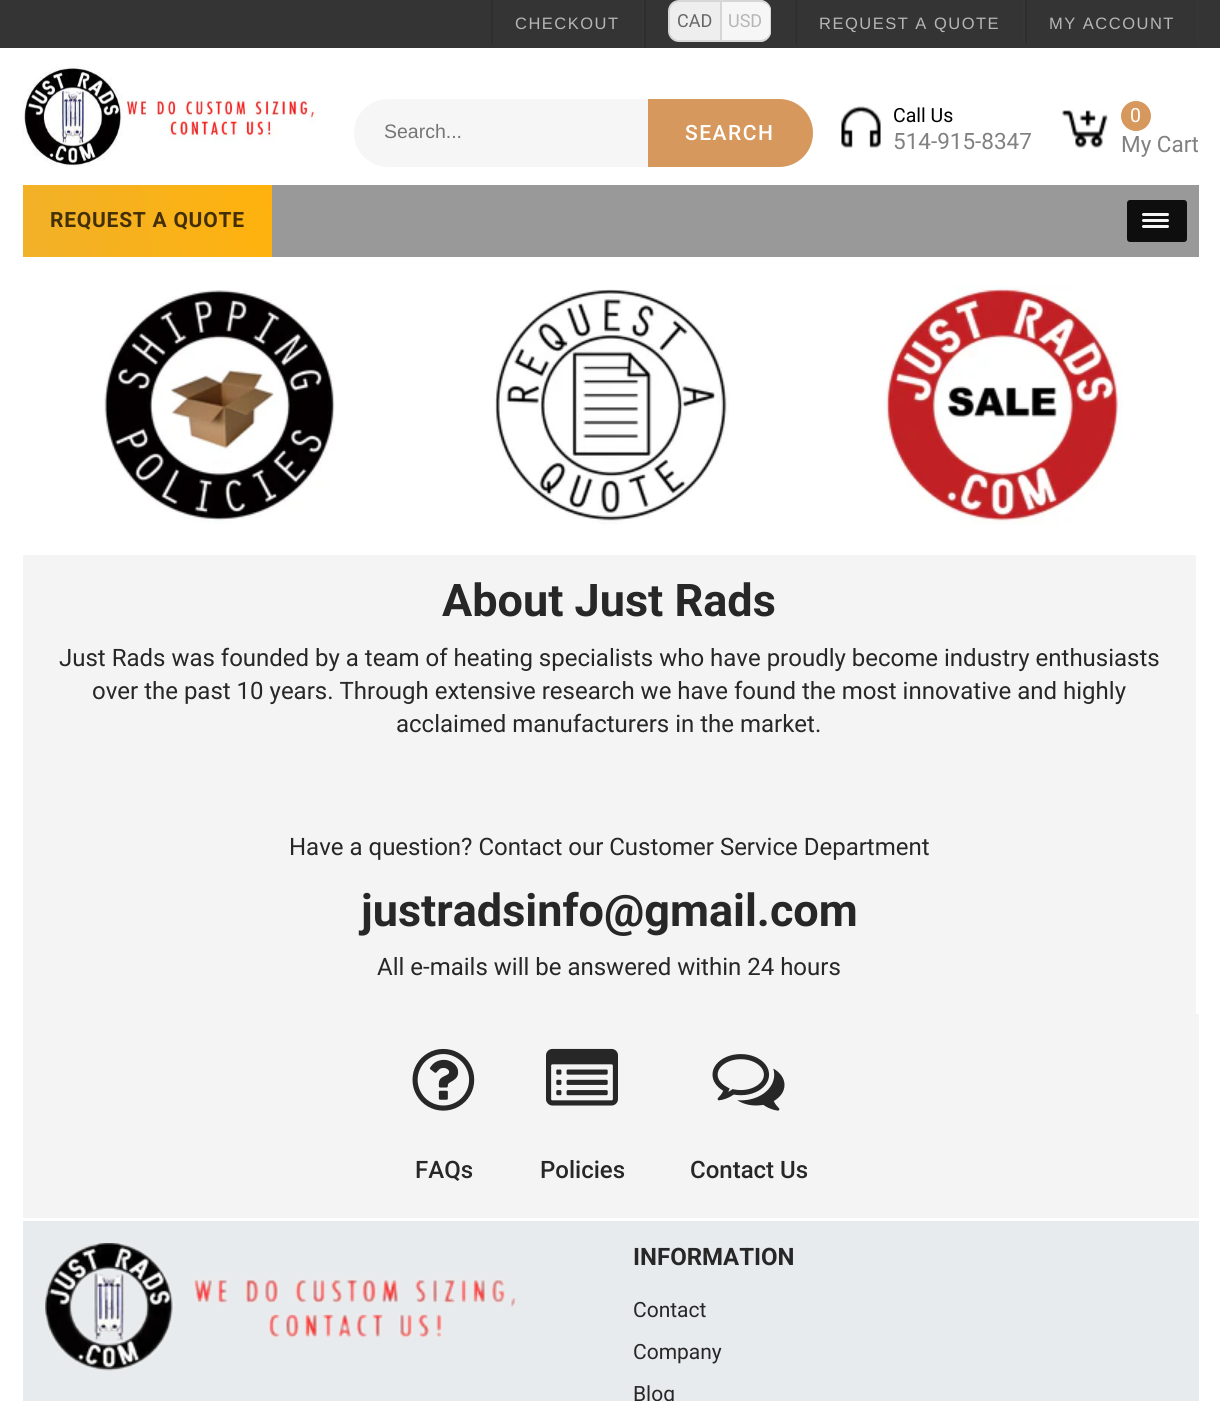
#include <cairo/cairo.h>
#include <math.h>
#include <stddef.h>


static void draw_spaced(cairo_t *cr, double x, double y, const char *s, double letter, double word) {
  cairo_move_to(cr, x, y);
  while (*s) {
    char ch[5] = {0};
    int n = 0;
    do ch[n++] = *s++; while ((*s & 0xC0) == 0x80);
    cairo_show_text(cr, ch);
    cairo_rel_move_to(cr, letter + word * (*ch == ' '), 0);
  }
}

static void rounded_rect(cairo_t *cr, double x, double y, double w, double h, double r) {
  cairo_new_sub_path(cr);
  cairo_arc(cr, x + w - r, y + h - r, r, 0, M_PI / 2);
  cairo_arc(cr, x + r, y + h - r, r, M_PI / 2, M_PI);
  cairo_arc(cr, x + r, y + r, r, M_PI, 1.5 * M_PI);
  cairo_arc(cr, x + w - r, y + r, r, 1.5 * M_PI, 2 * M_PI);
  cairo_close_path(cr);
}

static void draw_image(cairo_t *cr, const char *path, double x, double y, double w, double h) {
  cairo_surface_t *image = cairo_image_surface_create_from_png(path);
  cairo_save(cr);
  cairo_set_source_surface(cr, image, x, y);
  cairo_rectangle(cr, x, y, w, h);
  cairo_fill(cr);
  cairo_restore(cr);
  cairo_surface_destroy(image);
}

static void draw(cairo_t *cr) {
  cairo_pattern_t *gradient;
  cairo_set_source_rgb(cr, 1, 1, 1);
  cairo_paint(cr);
  cairo_set_source_rgb(cr, 52 / 255.0, 52 / 255.0, 52 / 255.0);
  cairo_rectangle(cr, 0, 0, 1220, 48);
  cairo_fill(cr);
  cairo_set_source_rgb(cr, 53 / 255.0, 55 / 255.0, 55 / 255.0);
  cairo_rectangle(cr, 642, 0, 2, 45);
  cairo_fill(cr);
  cairo_set_source_rgb(cr, 45 / 255.0, 46 / 255.0, 47 / 255.0);
  cairo_rectangle(cr, 491, 0, 2, 45);
  cairo_fill(cr);
  cairo_set_source_rgb(cr, 53 / 255.0, 55 / 255.0, 55 / 255.0);
  cairo_rectangle(cr, 794, 0, 2, 48);
  cairo_fill(cr);
  cairo_set_source_rgb(cr, 45 / 255.0, 46 / 255.0, 47 / 255.0);
  cairo_rectangle(cr, 644, 0, 2, 48);
  cairo_fill(cr);
  cairo_set_source_rgb(cr, 238 / 255.0, 238 / 255.0, 238 / 255.0);
  cairo_new_path(cr);
  cairo_move_to(cr, 679, 1);
  cairo_line_to(cr, 721, 1);
  cairo_line_to(cr, 721, 41);
  cairo_line_to(cr, 679, 41);
  cairo_curve_to(cr, 673.5, 41, 669, 36.5, 669, 31);
  cairo_line_to(cr, 669, 11);
  cairo_curve_to(cr, 669, 5.5, 673.5, 1, 679, 1);
  cairo_close_path(cr);
  cairo_fill_preserve(cr);
  cairo_set_source_rgb(cr, 214 / 255.0, 214 / 255.0, 214 / 255.0);
  cairo_stroke(cr);
  cairo_set_source_rgb(cr, 246 / 255.0, 246 / 255.0, 246 / 255.0);
  cairo_new_path(cr);
  cairo_move_to(cr, 722, 0);
  cairo_line_to(cr, 760, 0);
  cairo_curve_to(cr, 766, 0, 771, 5, 771, 11);
  cairo_line_to(cr, 771, 31);
  cairo_curve_to(cr, 771, 37, 766, 42, 760, 42);
  cairo_line_to(cr, 722, 42);
  cairo_close_path(cr);
  cairo_fill(cr);
  cairo_set_source_rgb(cr, 214 / 255.0, 214 / 255.0, 214 / 255.0);
  cairo_set_fill_rule(cr, CAIRO_FILL_RULE_EVEN_ODD);
  cairo_new_path(cr);
  cairo_move_to(cr, 722, 0);
  cairo_line_to(cr, 760, 0);
  cairo_curve_to(cr, 766, 0, 771, 5, 771, 10);
  cairo_line_to(cr, 771, 32);
  cairo_curve_to(cr, 771, 37, 766, 42, 760, 42);
  cairo_line_to(cr, 722, 42);
  cairo_close_path(cr);
  cairo_move_to(cr, 722, 2);
  cairo_line_to(cr, 760, 2);
  cairo_curve_to(cr, 765, 2, 770, 6, 770, 10);
  cairo_line_to(cr, 770, 32);
  cairo_curve_to(cr, 770, 36, 765, 40, 760, 40);
  cairo_line_to(cr, 722, 40);
  cairo_close_path(cr);
  cairo_fill(cr);
  cairo_set_source_rgb(cr, 53 / 255.0, 55 / 255.0, 55 / 255.0);
  cairo_rectangle(cr, 1023, 0, 2, 45);
  cairo_fill(cr);
  cairo_set_source_rgba(cr, 27 / 255.0, 32 / 255.0, 34 / 255.0, 0.3);
  cairo_rectangle(cr, 795, 0, 2, 45);
  cairo_fill(cr);
  cairo_set_source_rgb(cr, 53 / 255.0, 55 / 255.0, 55 / 255.0);
  cairo_rectangle(cr, 1197, 0, 2, 45);
  cairo_fill(cr);
  cairo_set_source_rgb(cr, 45 / 255.0, 46 / 255.0, 47 / 255.0);
  cairo_rectangle(cr, 1025, 0, 2, 45);
  cairo_fill(cr);
  draw_image(cr, "images/1.png", 22, 66, 295, 101);
  cairo_set_source_rgb(cr, 246 / 255.0, 246 / 255.0, 246 / 255.0);
  rounded_rect(cr, 354, 99, 459, 68, 34);
  cairo_fill(cr);
  cairo_set_source_rgb(cr, 215 / 255.0, 152 / 255.0, 93 / 255.0);
  cairo_new_path(cr);
  cairo_move_to(cr, 648, 99);
  cairo_line_to(cr, 779, 99);
  cairo_curve_to(cr, 798, 99, 813, 114, 813, 133);
  cairo_curve_to(cr, 813, 152, 798, 167, 779, 167);
  cairo_line_to(cr, 648, 167);
  cairo_close_path(cr);
  cairo_fill(cr);
  draw_image(cr, "images/2.png", 841, 106, 40, 42);
  draw_image(cr, "images/3.png", 1061, 110, 47, 38);
  cairo_arc(cr, 1136, 116, 15, 0, 2 * M_PI);
  cairo_fill(cr);
  gradient = cairo_pattern_create_linear(20, 243, 274, 198);
  cairo_pattern_add_color_stop_rgba(gradient, 0, 241 / 255.0, 177 / 255.0, 41 / 255.0, 1);
  cairo_pattern_add_color_stop_rgba(gradient, 1, 1, 178 / 255.0, 13 / 255.0, 1);
  cairo_set_source(cr, gradient);
  cairo_pattern_destroy(gradient);
  cairo_rectangle(cr, 23, 185, 249, 72);
  cairo_fill(cr);
  cairo_set_source_rgb(cr, 153 / 255.0, 153 / 255.0, 153 / 255.0);
  cairo_rectangle(cr, 272, 185, 927, 72);
  cairo_fill(cr);
  cairo_set_source_rgb(cr, 14 / 255.0, 14 / 255.0, 14 / 255.0);
  rounded_rect(cr, 1127, 200, 60, 42, 3);
  cairo_fill(cr);
  cairo_set_source_rgb(cr, 245 / 255.0, 245 / 255.0, 245 / 255.0);
  rounded_rect(cr, 1142, 213, 27, 3, 1.5);
  cairo_fill(cr);
  rounded_rect(cr, 1142, 219, 27, 3, 1.5);
  cairo_fill(cr);
  rounded_rect(cr, 1142, 225, 27, 3, 1.5);
  cairo_fill(cr);
  draw_image(cr, "images/4.png", 104, 290, 231, 234);
  draw_image(cr, "images/5.png", 494, 289, 235, 236);
  draw_image(cr, "images/6.png", 882, 285, 240, 240);
  cairo_set_source_rgb(cr, 244 / 255.0, 244 / 255.0, 244 / 255.0);
  cairo_rectangle(cr, 23, 555, 1176, 663);
  cairo_fill(cr);
  cairo_set_source_rgb(cr, 1, 1, 1);
  cairo_rectangle(cr, 1196, 555, 3, 459);
  cairo_fill(cr);
  draw_image(cr, "images/7.png", 412, 1048, 63, 63);
  draw_image(cr, "images/8.png", 546, 1048, 72, 58);
  draw_image(cr, "images/9.png", 712, 1054, 73, 57);
  cairo_set_source_rgb(cr, 232 / 255.0, 235 / 255.0, 237 / 255.0);
  cairo_rectangle(cr, 23, 1221, 1176, 180);
  cairo_fill(cr);
  draw_image(cr, "images/10.png", 45, 1243, 471, 128);
  cairo_select_font_face(cr, "Liberation Sans", CAIRO_FONT_SLANT_NORMAL, CAIRO_FONT_WEIGHT_NORMAL);
  cairo_set_font_size(cr, 16.5);
  cairo_set_source_rgb(cr, 182 / 255.0, 182 / 255.0, 182 / 255.0);
  draw_spaced(cr, 515, 29, "CHECKOUT", 1.5, 0);
  cairo_select_font_face(cr, "Roboto", CAIRO_FONT_SLANT_NORMAL, CAIRO_FONT_WEIGHT_NORMAL);
  cairo_set_font_size(cr, 18);
  cairo_set_source_rgb(cr, 102 / 255.0, 102 / 255.0, 102 / 255.0);
  cairo_move_to(cr, 677, 27);
  cairo_show_text(cr, "CAD");
  cairo_set_source_rgb(cr, 182 / 255.0, 182 / 255.0, 182 / 255.0);
  cairo_move_to(cr, 728, 27);
  cairo_show_text(cr, "USD");
  cairo_select_font_face(cr, "Liberation Sans", CAIRO_FONT_SLANT_NORMAL, CAIRO_FONT_WEIGHT_NORMAL);
  cairo_set_font_size(cr, 16.5);
  draw_spaced(cr, 819, 29, "REQUEST A QUOTE", 1.5, 0);
  draw_spaced(cr, 1049, 29, "MY ACCOUNT", 1.5, 0);
  cairo_set_font_size(cr, 19.5);
  cairo_set_source_rgb(cr, 117 / 255.0, 117 / 255.0, 117 / 255.0);
  cairo_move_to(cr, 384, 138);
  cairo_show_text(cr, "Search...");
  cairo_select_font_face(cr, "Roboto Medium", CAIRO_FONT_SLANT_NORMAL, CAIRO_FONT_WEIGHT_NORMAL);
  cairo_set_font_size(cr, 21);
  cairo_set_source_rgb(cr, 1, 1, 1);
  draw_spaced(cr, 685, 140, "SEARCH", 1.5, 0);
  cairo_select_font_face(cr, "Roboto", CAIRO_FONT_SLANT_NORMAL, CAIRO_FONT_WEIGHT_NORMAL);
  cairo_set_font_size(cr, 19.5);
  cairo_set_source_rgb(cr, 0, 0, 0);
  cairo_move_to(cr, 893, 122);
  cairo_show_text(cr, "Call Us");
  cairo_set_font_size(cr, 22.5);
  cairo_set_source_rgb(cr, 129 / 255.0, 129 / 255.0, 129 / 255.0);
  cairo_move_to(cr, 893, 149);
  cairo_show_text(cr, "514-915-8347");
  cairo_set_font_size(cr, 19.5);
  cairo_set_source_rgb(cr, 1, 1, 1);
  cairo_move_to(cr, 1130, 122);
  cairo_show_text(cr, "0");
  cairo_set_font_size(cr, 22.5);
  cairo_set_source_rgb(cr, 129 / 255.0, 129 / 255.0, 129 / 255.0);
  cairo_move_to(cr, 1121, 152);
  cairo_show_text(cr, "My Cart");
  cairo_select_font_face(cr, "Roboto", CAIRO_FONT_SLANT_NORMAL, CAIRO_FONT_WEIGHT_BOLD);
  cairo_set_font_size(cr, 21);
  cairo_set_source_rgb(cr, 67 / 255.0, 47 / 255.0, 5 / 255.0);
  draw_spaced(cr, 50, 227, "REQUEST A QUOTE", 0.75, 0);
  cairo_set_font_size(cr, 45);
  cairo_set_source_rgb(cr, 39 / 255.0, 39 / 255.0, 39 / 255.0);
  cairo_move_to(cr, 442, 616);
  cairo_show_text(cr, "About Just Rads");
  cairo_select_font_face(cr, "Roboto", CAIRO_FONT_SLANT_NORMAL, CAIRO_FONT_WEIGHT_NORMAL);
  cairo_set_font_size(cr, 24);
  cairo_move_to(cr, 59, 666);
  cairo_show_text(cr, "Just Rads was founded by a team of heating specialists who have proudly become industry enthusiasts");
  cairo_move_to(cr, 92, 699);
  cairo_show_text(cr, "over the past 10 years. Through extensive research we have found the most innovative and highly");
  cairo_move_to(cr, 396, 732);
  cairo_show_text(cr, "acclaimed manufacturers in the market.");
  cairo_move_to(cr, 289, 855);
  cairo_show_text(cr, "Have a question? Contact our Customer Service Department");
  cairo_select_font_face(cr, "Roboto", CAIRO_FONT_SLANT_NORMAL, CAIRO_FONT_WEIGHT_BOLD);
  cairo_set_font_size(cr, 45);
  cairo_move_to(cr, 361, 926);
  cairo_show_text(cr, "justradsinfo@gmail.com");
  cairo_select_font_face(cr, "Roboto", CAIRO_FONT_SLANT_NORMAL, CAIRO_FONT_WEIGHT_NORMAL);
  cairo_set_font_size(cr, 24);
  cairo_move_to(cr, 377, 975);
  cairo_show_text(cr, "All e-mails will be answered within 24 hours");
  cairo_select_font_face(cr, "Roboto Medium", CAIRO_FONT_SLANT_NORMAL, CAIRO_FONT_WEIGHT_NORMAL);
  cairo_move_to(cr, 415, 1178);
  cairo_show_text(cr, "FAQs");
  cairo_move_to(cr, 540, 1178);
  cairo_show_text(cr, "Policies");
  cairo_move_to(cr, 690, 1178);
  cairo_show_text(cr, "Contact Us");
  cairo_select_font_face(cr, "Roboto", CAIRO_FONT_SLANT_NORMAL, CAIRO_FONT_WEIGHT_BOLD);
  cairo_move_to(cr, 633, 1265);
  cairo_show_text(cr, "INFORMATION");
  cairo_select_font_face(cr, "Roboto", CAIRO_FONT_SLANT_NORMAL, CAIRO_FONT_WEIGHT_NORMAL);
  cairo_set_font_size(cr, 21);
  cairo_move_to(cr, 633, 1317);
  cairo_show_text(cr, "Contact");
  cairo_move_to(cr, 633, 1359);
  cairo_show_text(cr, "Company");
  cairo_move_to(cr, 633, 1401);
  cairo_show_text(cr, "Blog");
}

int main(void) {
  cairo_surface_t *surface = cairo_image_surface_create(CAIRO_FORMAT_RGB24, 1220, 1401);
  cairo_t *cr = cairo_create(surface);
  cairo_font_options_t *options = cairo_font_options_create();
  cairo_font_options_set_hint_metrics(options, CAIRO_HINT_METRICS_OFF);
  cairo_font_options_set_hint_style(options, CAIRO_HINT_STYLE_NONE);
  cairo_set_font_options(cr, options);
  cairo_set_miter_limit(cr, 4);
  draw(cr);
  cairo_surface_write_to_png(surface, "out.png");
  cairo_font_options_destroy(options);
  cairo_destroy(cr);
  cairo_surface_destroy(surface);
  return 0;
}
